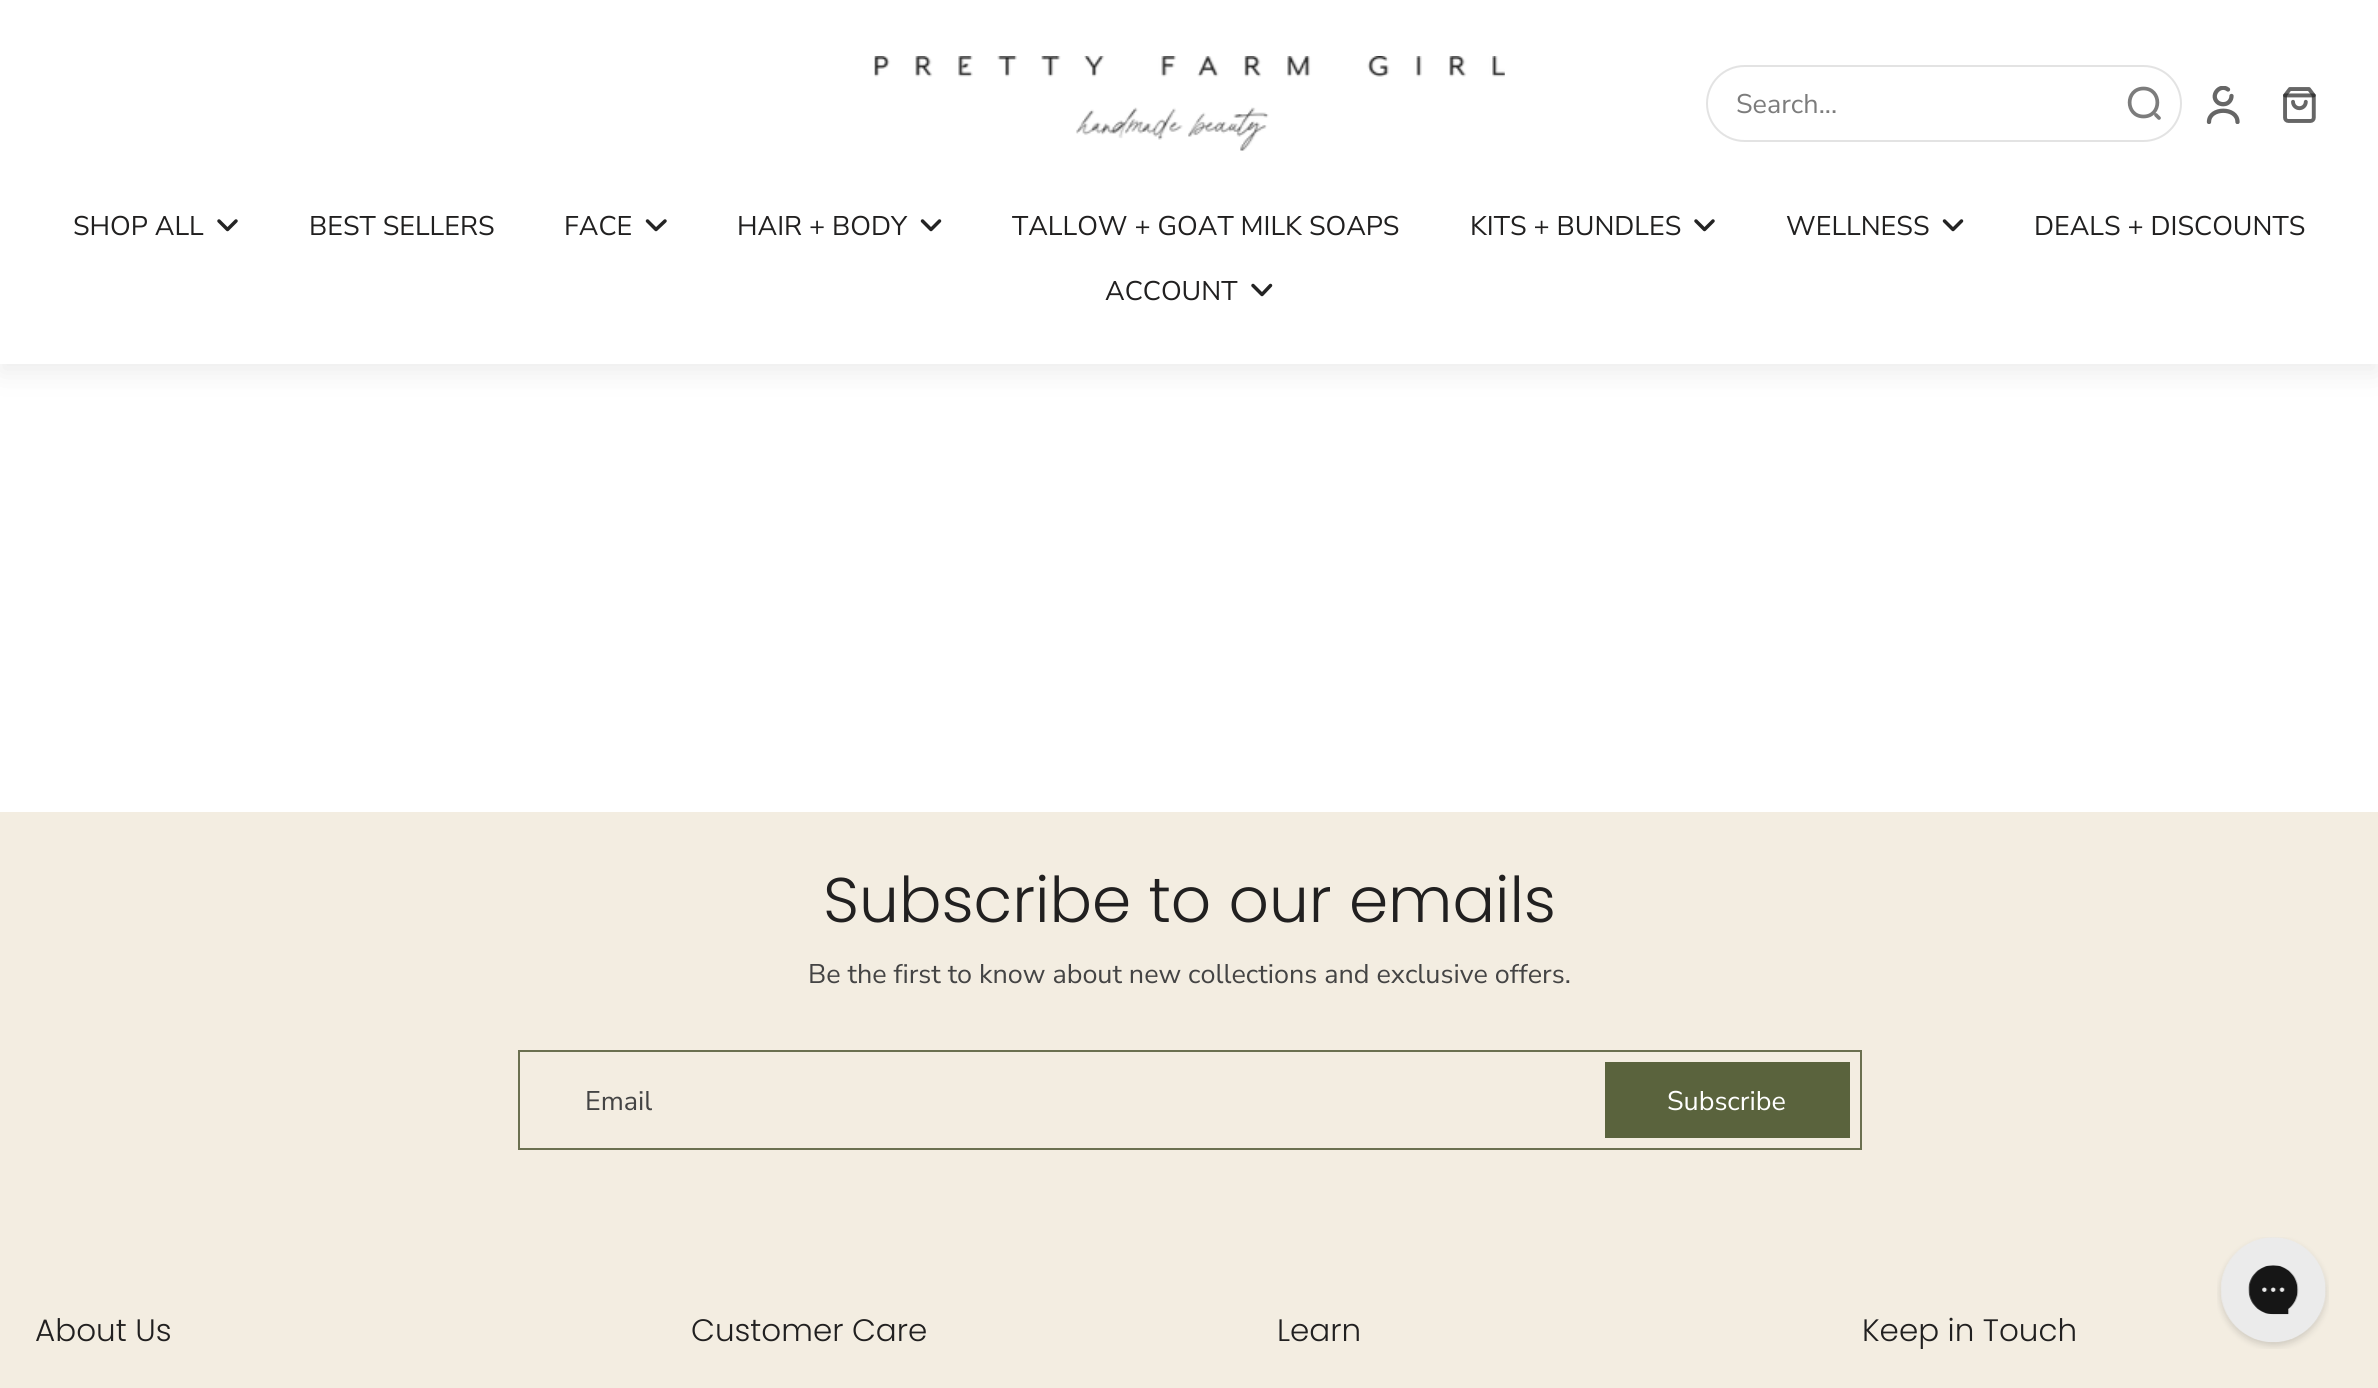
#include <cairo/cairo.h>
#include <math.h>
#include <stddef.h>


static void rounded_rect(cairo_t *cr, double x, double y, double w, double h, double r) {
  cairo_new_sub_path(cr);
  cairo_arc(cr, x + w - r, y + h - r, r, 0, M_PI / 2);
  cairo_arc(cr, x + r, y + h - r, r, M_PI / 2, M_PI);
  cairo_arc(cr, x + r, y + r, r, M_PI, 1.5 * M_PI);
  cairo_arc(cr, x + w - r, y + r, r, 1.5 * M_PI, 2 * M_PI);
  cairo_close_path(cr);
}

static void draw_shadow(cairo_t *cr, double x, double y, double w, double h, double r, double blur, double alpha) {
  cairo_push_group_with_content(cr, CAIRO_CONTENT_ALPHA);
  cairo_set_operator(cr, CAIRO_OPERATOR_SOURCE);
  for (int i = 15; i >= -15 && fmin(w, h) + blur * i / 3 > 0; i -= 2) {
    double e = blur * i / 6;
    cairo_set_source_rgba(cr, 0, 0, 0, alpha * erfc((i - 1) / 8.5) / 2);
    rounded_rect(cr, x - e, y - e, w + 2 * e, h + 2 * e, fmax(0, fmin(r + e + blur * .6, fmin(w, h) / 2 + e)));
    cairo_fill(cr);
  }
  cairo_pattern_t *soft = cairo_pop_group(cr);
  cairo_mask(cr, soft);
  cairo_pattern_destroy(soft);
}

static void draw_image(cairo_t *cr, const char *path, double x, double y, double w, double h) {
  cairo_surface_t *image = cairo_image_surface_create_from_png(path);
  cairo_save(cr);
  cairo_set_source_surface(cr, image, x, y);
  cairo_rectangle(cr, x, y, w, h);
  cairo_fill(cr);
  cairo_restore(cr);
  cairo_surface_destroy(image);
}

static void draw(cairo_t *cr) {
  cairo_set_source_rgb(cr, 1, 1, 1);
  cairo_paint(cr);
  cairo_set_source_rgb(cr, 68 / 255.0, 68 / 255.0, 68 / 255.0);
  draw_shadow(cr, 0, 9, 2378, 364, 0, 13, 0.1);
  cairo_set_source_rgb(cr, 1, 1, 1);
  cairo_rectangle(cr, 0, 0, 2378, 364);
  cairo_fill(cr);
  draw_image(cr, "images/1.png", 874, 56, 631, 95);
  rounded_rect(cr, 1707, 66, 474, 75, 37.5);
  cairo_set_source_rgb(cr, 227 / 255.0, 227 / 255.0, 227 / 255.0);
  cairo_stroke(cr);
  cairo_new_path(cr);
  cairo_move_to(cr, 2143.5, 116.5);
  cairo_curve_to(cr, 2162, 116.5, 2162, 88.5, 2143.5, 88.5);
  cairo_curve_to(cr, 2125, 88.5, 2125, 116.5, 2143.5, 116.5);
  cairo_close_path(cr);
  cairo_move_to(cr, 2159, 118);
  cairo_line_to(cr, 2156, 115);
  cairo_set_source_rgb(cr, 124 / 255.0, 124 / 255.0, 124 / 255.0);
  cairo_set_line_width(cr, 3.7);
  cairo_set_line_cap(cr, CAIRO_LINE_CAP_ROUND);
  cairo_set_line_join(cr, CAIRO_LINE_JOIN_ROUND);
  cairo_stroke(cr);
  cairo_save(cr);
  cairo_rectangle(cr, 2203, 86, 39, 38);
  cairo_clip(cr);
  cairo_new_path(cr);
  cairo_move_to(cr, 2228, 89.5);
  cairo_curve_to(cr, 2219.5, 83, 2209, 96.5, 2218.5, 103);
  cairo_curve_to(cr, 2220.5, 104, 2222.5, 104.5, 2225, 104);
  cairo_curve_to(cr, 2228.5, 103.5, 2231.5, 100, 2231.5, 96);
  cairo_move_to(cr, 2237.5, 122);
  cairo_curve_to(cr, 2237.5, 107, 2209, 107, 2209, 122);
  cairo_set_source_rgb(cr, 102 / 255.0, 102 / 255.0, 102 / 255.0);
  cairo_set_line_width(cr, 4.3);
  cairo_stroke(cr);
  cairo_restore(cr);
  draw_image(cr, "images/2.png", 2283, 87, 33, 36);
  cairo_new_path(cr);
  cairo_move_to(cr, 219, 221);
  cairo_line_to(cr, 227.5, 229.5);
  cairo_line_to(cr, 236, 221);
  cairo_set_source_rgb(cr, 36 / 255.0, 36 / 255.0, 36 / 255.0);
  cairo_set_line_width(cr, 3.5);
  cairo_stroke(cr);
  cairo_new_path(cr);
  cairo_move_to(cr, 647.5, 221);
  cairo_line_to(cr, 656, 229.5);
  cairo_line_to(cr, 665, 221);
  cairo_stroke(cr);
  cairo_new_path(cr);
  cairo_move_to(cr, 922.5, 221);
  cairo_line_to(cr, 931, 229.5);
  cairo_line_to(cr, 939.5, 221);
  cairo_stroke(cr);
  cairo_new_path(cr);
  cairo_move_to(cr, 1696, 221);
  cairo_line_to(cr, 1704.5, 229.5);
  cairo_line_to(cr, 1713, 221);
  cairo_stroke(cr);
  cairo_new_path(cr);
  cairo_move_to(cr, 1944.5, 221);
  cairo_line_to(cr, 1953, 229.5);
  cairo_line_to(cr, 1961.5, 221);
  cairo_stroke(cr);
  cairo_new_path(cr);
  cairo_move_to(cr, 1253, 285.5);
  cairo_line_to(cr, 1262, 294.5);
  cairo_line_to(cr, 1270.5, 285.5);
  cairo_stroke(cr);
  cairo_set_source_rgb(cr, 243 / 255.0, 237 / 255.0, 225 / 255.0);
  cairo_rectangle(cr, 0, 812, 2378, 576);
  cairo_fill(cr);
  cairo_rectangle(cr, 519, 1051, 1342, 98);
  cairo_set_source_rgb(cr, 107 / 255.0, 112 / 255.0, 80 / 255.0);
  cairo_set_line_width(cr, 2);
  cairo_set_line_cap(cr, CAIRO_LINE_CAP_BUTT);
  cairo_set_line_join(cr, CAIRO_LINE_JOIN_MITER);
  cairo_stroke(cr);
  cairo_set_source_rgb(cr, 90 / 255.0, 99 / 255.0, 61 / 255.0);
  cairo_rectangle(cr, 1605, 1062, 245, 76);
  cairo_fill(cr);
  draw_image(cr, "images/3.png", 2217, 1237, 112, 112);
  cairo_select_font_face(cr, "Nunito Sans ExtraLight", CAIRO_FONT_SLANT_NORMAL, CAIRO_FONT_WEIGHT_NORMAL);
  cairo_set_font_size(cr, 26.95);
  cairo_set_source_rgb(cr, 124 / 255.0, 124 / 255.0, 124 / 255.0);
  cairo_move_to(cr, 1736, 113);
  cairo_show_text(cr, "Search...");
  cairo_set_source_rgb(cr, 33 / 255.0, 32 / 255.0, 32 / 255.0);
  cairo_move_to(cr, 73, 235);
  cairo_show_text(cr, "SHOP ALL");
  cairo_move_to(cr, 309, 235);
  cairo_show_text(cr, "BEST SELLERS");
  cairo_move_to(cr, 564, 235);
  cairo_show_text(cr, "FACE");
  cairo_move_to(cr, 737, 235);
  cairo_show_text(cr, "HAIR + BODY");
  cairo_move_to(cr, 1012, 235);
  cairo_show_text(cr, "TALLOW + GOAT MILK SOAPS");
  cairo_move_to(cr, 1470, 235);
  cairo_show_text(cr, "KITS + BUNDLES");
  cairo_move_to(cr, 1786, 235);
  cairo_show_text(cr, "WELLNESS");
  cairo_move_to(cr, 2034, 235);
  cairo_show_text(cr, "DEALS + DISCOUNTS");
  cairo_move_to(cr, 1105, 300);
  cairo_show_text(cr, "ACCOUNT");
  cairo_select_font_face(cr, "Poppins Light", CAIRO_FONT_SLANT_NORMAL, CAIRO_FONT_WEIGHT_NORMAL);
  cairo_set_font_size(cr, 63);
  cairo_move_to(cr, 823, 922);
  cairo_show_text(cr, "Subscribe to our emails");
  cairo_select_font_face(cr, "Nunito Sans ExtraLight", CAIRO_FONT_SLANT_NORMAL, CAIRO_FONT_WEIGHT_NORMAL);
  cairo_set_font_size(cr, 26.95);
  cairo_set_source_rgb(cr, 68 / 255.0, 68 / 255.0, 68 / 255.0);
  cairo_move_to(cr, 808, 983);
  cairo_show_text(cr, "Be the first to know about new collections and exclusive offers.");
  cairo_move_to(cr, 585, 1110);
  cairo_show_text(cr, "Email");
  cairo_set_source_rgb(cr, 1, 1, 1);
  cairo_move_to(cr, 1667, 1110);
  cairo_show_text(cr, "Subscribe");
  cairo_select_font_face(cr, "Poppins Light", CAIRO_FONT_SLANT_NORMAL, CAIRO_FONT_WEIGHT_NORMAL);
  cairo_set_font_size(cr, 31);
  cairo_set_source_rgb(cr, 33 / 255.0, 32 / 255.0, 32 / 255.0);
  cairo_move_to(cr, 35, 1341);
  cairo_show_text(cr, "About Us");
  cairo_move_to(cr, 691, 1341);
  cairo_show_text(cr, "Customer Care");
  cairo_move_to(cr, 1277, 1341);
  cairo_show_text(cr, "Learn");
  cairo_move_to(cr, 1862, 1341);
  cairo_show_text(cr, "Keep in Touch");
}

int main(void) {
  cairo_surface_t *surface = cairo_image_surface_create(CAIRO_FORMAT_RGB24, 2378, 1388);
  cairo_t *cr = cairo_create(surface);
  cairo_font_options_t *options = cairo_font_options_create();
  cairo_font_options_set_hint_metrics(options, CAIRO_HINT_METRICS_OFF);
  cairo_font_options_set_hint_style(options, CAIRO_HINT_STYLE_NONE);
  cairo_set_font_options(cr, options);
  cairo_set_miter_limit(cr, 4);
  draw(cr);
  cairo_surface_write_to_png(surface, "out.png");
  cairo_font_options_destroy(options);
  cairo_destroy(cr);
  cairo_surface_destroy(surface);
  return 0;
}
